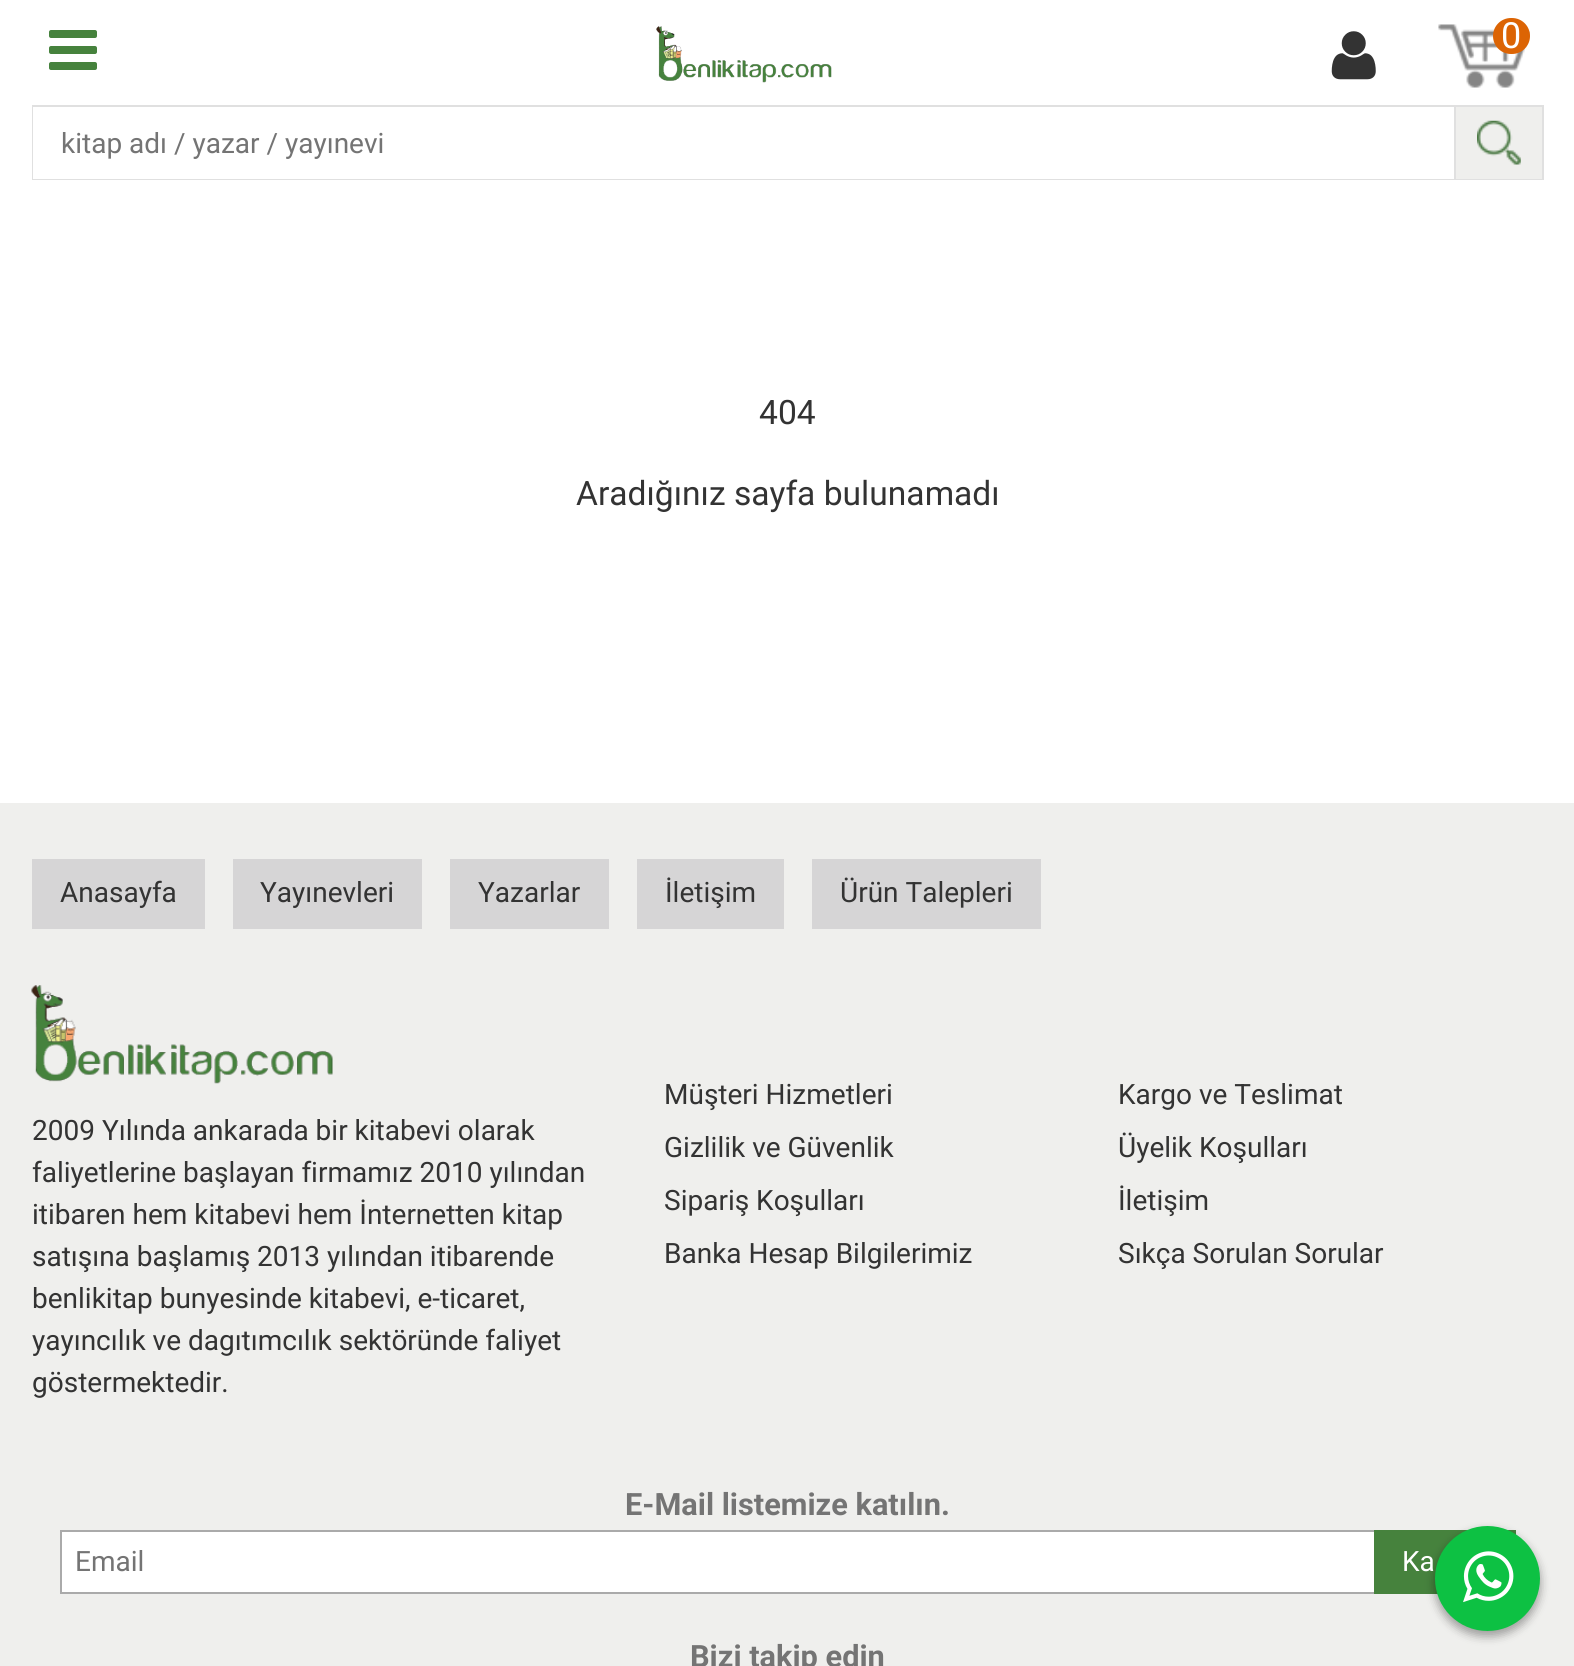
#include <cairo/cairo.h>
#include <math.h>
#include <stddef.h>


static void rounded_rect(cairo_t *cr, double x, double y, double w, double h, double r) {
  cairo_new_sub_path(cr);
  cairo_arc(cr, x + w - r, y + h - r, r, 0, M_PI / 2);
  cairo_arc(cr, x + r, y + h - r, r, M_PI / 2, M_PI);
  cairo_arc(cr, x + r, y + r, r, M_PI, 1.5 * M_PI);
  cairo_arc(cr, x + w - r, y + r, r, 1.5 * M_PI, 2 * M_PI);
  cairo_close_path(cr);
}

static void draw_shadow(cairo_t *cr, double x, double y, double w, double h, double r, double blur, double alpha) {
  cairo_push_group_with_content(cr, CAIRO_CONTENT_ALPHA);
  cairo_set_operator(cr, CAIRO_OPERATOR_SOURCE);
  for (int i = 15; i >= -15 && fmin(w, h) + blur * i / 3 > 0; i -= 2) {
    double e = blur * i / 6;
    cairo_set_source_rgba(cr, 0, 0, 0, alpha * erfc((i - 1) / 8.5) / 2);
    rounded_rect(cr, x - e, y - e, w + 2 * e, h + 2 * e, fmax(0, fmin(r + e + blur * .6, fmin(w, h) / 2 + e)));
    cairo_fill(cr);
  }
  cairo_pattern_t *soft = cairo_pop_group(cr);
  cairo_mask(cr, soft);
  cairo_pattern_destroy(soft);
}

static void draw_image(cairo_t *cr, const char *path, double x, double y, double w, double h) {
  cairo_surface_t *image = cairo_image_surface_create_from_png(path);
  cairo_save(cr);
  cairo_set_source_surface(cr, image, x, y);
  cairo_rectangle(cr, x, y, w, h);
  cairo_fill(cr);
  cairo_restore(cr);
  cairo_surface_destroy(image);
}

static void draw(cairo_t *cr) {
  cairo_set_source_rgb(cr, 1, 1, 1);
  cairo_paint(cr);
  draw_image(cr, "images/1.png", 49, 30, 48, 40);
  draw_image(cr, "images/2.png", 656, 26, 176, 57);
  draw_image(cr, "images/3.png", 1331, 31, 45, 49);
  draw_image(cr, "images/4.png", 1438, 24, 92, 64);
  cairo_set_source_rgb(cr, 220 / 255.0, 100 / 255.0, 4 / 255.0);
  rounded_rect(cr, 1493, 18, 37, 36, 18);
  cairo_fill(cr);
  cairo_rectangle(cr, 33, 106, 1510, 73);
  cairo_set_source_rgb(cr, 224 / 255.0, 224 / 255.0, 224 / 255.0);
  cairo_stroke(cr);
  cairo_set_source_rgb(cr, 1, 1, 1);
  cairo_rectangle(cr, 33, 107, 1421, 72);
  cairo_fill(cr);
  cairo_set_source_rgb(cr, 239 / 255.0, 239 / 255.0, 237 / 255.0);
  cairo_rectangle(cr, 1456, 107, 86, 72);
  cairo_fill(cr);
  draw_image(cr, "images/5.png", 1477, 120, 44, 45);
  cairo_set_source_rgb(cr, 224 / 255.0, 224 / 255.0, 224 / 255.0);
  cairo_rectangle(cr, 1454, 107, 2, 72);
  cairo_fill(cr);
  cairo_set_source_rgb(cr, 239 / 255.0, 239 / 255.0, 237 / 255.0);
  cairo_rectangle(cr, 0, 803, 1574, 863);
  cairo_fill(cr);
  cairo_set_source_rgb(cr, 214 / 255.0, 213 / 255.0, 214 / 255.0);
  cairo_rectangle(cr, 32, 859, 173, 70);
  cairo_fill(cr);
  cairo_rectangle(cr, 233, 859, 189, 70);
  cairo_fill(cr);
  cairo_rectangle(cr, 450, 859, 159, 70);
  cairo_fill(cr);
  cairo_rectangle(cr, 637, 859, 147, 70);
  cairo_fill(cr);
  cairo_rectangle(cr, 812, 859, 229, 70);
  cairo_fill(cr);
  draw_image(cr, "images/6.png", 31, 985, 302, 99);
  cairo_set_source_rgb(cr, 1, 1, 1);
  cairo_rectangle(cr, 62, 1532, 1312, 60);
  cairo_fill(cr);
  cairo_rectangle(cr, 61, 1531, 1454, 62);
  cairo_set_source_rgb(cr, 170 / 255.0, 170 / 255.0, 170 / 255.0);
  cairo_stroke(cr);
  cairo_set_source_rgb(cr, 70 / 255.0, 130 / 255.0, 61 / 255.0);
  cairo_rectangle(cr, 1374, 1530, 142, 64);
  cairo_fill(cr);
  cairo_set_source_rgb(cr, 0, 0, 0);
  draw_shadow(cr, 1435, 1531, 105, 105, 52.5, 5, 0.23);
  draw_shadow(cr, 1435, 1531, 105, 105, 52.5, 5, 0.16);
  cairo_set_source_rgb(cr, 13 / 255.0, 193 / 255.0, 67 / 255.0);
  cairo_arc(cr, 1487.5, 1578.5, 52.5, 0, 2 * M_PI);
  cairo_fill(cr);
  draw_image(cr, "images/7.png", 1463, 1551, 51, 52);
  cairo_select_font_face(cr, "Roboto", CAIRO_FONT_SLANT_NORMAL, CAIRO_FONT_WEIGHT_NORMAL);
  cairo_set_font_size(cr, 36);
  cairo_set_source_rgb(cr, 1, 1, 1);
  cairo_move_to(cr, 1501, 48);
  cairo_show_text(cr, "0");
  cairo_set_font_size(cr, 28);
  cairo_set_source_rgb(cr, 116 / 255.0, 116 / 255.0, 116 / 255.0);
  cairo_move_to(cr, 61, 153);
  cairo_show_text(cr, "kitap adı / yazar / yayınevi");
  cairo_set_font_size(cr, 33.6);
  cairo_set_source_rgb(cr, 51 / 255.0, 51 / 255.0, 51 / 255.0);
  cairo_move_to(cr, 759, 424);
  cairo_show_text(cr, "404");
  cairo_move_to(cr, 576, 505);
  cairo_show_text(cr, "Aradığınız sayfa bulunamadı");
  cairo_set_font_size(cr, 28);
  cairo_move_to(cr, 60, 902);
  cairo_show_text(cr, "Anasayfa");
  cairo_move_to(cr, 260, 902);
  cairo_show_text(cr, "Yayınevleri");
  cairo_move_to(cr, 478, 902);
  cairo_show_text(cr, "Yazarlar");
  cairo_move_to(cr, 665, 902);
  cairo_show_text(cr, "İletişim");
  cairo_move_to(cr, 840, 902);
  cairo_show_text(cr, "Ürün Talepleri");
  cairo_move_to(cr, 32, 1140);
  cairo_show_text(cr, "2009 Yılında ankarada bir kitabevi olarak");
  cairo_move_to(cr, 32, 1182);
  cairo_show_text(cr, "faliyetlerine başlayan firmamız 2010 yılından");
  cairo_move_to(cr, 32, 1224);
  cairo_show_text(cr, "itibaren hem kitabevi hem İnternetten kitap");
  cairo_move_to(cr, 32, 1266);
  cairo_show_text(cr, "satışına başlamış 2013 yılından itibarende");
  cairo_move_to(cr, 32, 1308);
  cairo_show_text(cr, "benlikitap bunyesinde kitabevi, e-ticaret,");
  cairo_move_to(cr, 32, 1350);
  cairo_show_text(cr, "yayıncılık ve dagıtımcılık sektöründe faliyet");
  cairo_move_to(cr, 32, 1392);
  cairo_show_text(cr, "göstermektedir.");
  cairo_move_to(cr, 664, 1104);
  cairo_show_text(cr, "Müşteri Hizmetleri");
  cairo_move_to(cr, 1118, 1104);
  cairo_show_text(cr, "Kargo ve Teslimat");
  cairo_move_to(cr, 664, 1157);
  cairo_show_text(cr, "Gizlilik ve Güvenlik");
  cairo_move_to(cr, 1118, 1157);
  cairo_show_text(cr, "Üyelik Koşulları");
  cairo_move_to(cr, 664, 1210);
  cairo_show_text(cr, "Sipariş Koşulları");
  cairo_move_to(cr, 1118, 1210);
  cairo_show_text(cr, "İletişim");
  cairo_move_to(cr, 664, 1263);
  cairo_show_text(cr, "Banka Hesap Bilgilerimiz");
  cairo_move_to(cr, 1118, 1263);
  cairo_show_text(cr, "Sıkça Sorulan Sorular");
  cairo_select_font_face(cr, "Roboto", CAIRO_FONT_SLANT_NORMAL, CAIRO_FONT_WEIGHT_BOLD);
  cairo_set_font_size(cr, 30.75);
  cairo_set_source_rgb(cr, 116 / 255.0, 116 / 255.0, 116 / 255.0);
  cairo_move_to(cr, 625, 1515);
  cairo_show_text(cr, "E-Mail listemize katılın.");
  cairo_select_font_face(cr, "Roboto", CAIRO_FONT_SLANT_NORMAL, CAIRO_FONT_WEIGHT_NORMAL);
  cairo_set_font_size(cr, 28);
  cairo_move_to(cr, 75, 1571);
  cairo_show_text(cr, "Email");
  cairo_set_source_rgb(cr, 1, 1, 1);
  cairo_move_to(cr, 1402, 1571);
  cairo_show_text(cr, "Ka");
  cairo_select_font_face(cr, "Roboto", CAIRO_FONT_SLANT_NORMAL, CAIRO_FONT_WEIGHT_BOLD);
  cairo_set_font_size(cr, 30.75);
  cairo_set_source_rgb(cr, 116 / 255.0, 116 / 255.0, 116 / 255.0);
  cairo_move_to(cr, 690, 1667);
  cairo_show_text(cr, "Bizi takip edin");
}

int main(void) {
  cairo_surface_t *surface = cairo_image_surface_create(CAIRO_FORMAT_RGB24, 1574, 1666);
  cairo_t *cr = cairo_create(surface);
  cairo_font_options_t *options = cairo_font_options_create();
  cairo_font_options_set_hint_metrics(options, CAIRO_HINT_METRICS_OFF);
  cairo_font_options_set_hint_style(options, CAIRO_HINT_STYLE_NONE);
  cairo_set_font_options(cr, options);
  cairo_set_miter_limit(cr, 4);
  draw(cr);
  cairo_surface_write_to_png(surface, "out.png");
  cairo_font_options_destroy(options);
  cairo_destroy(cr);
  cairo_surface_destroy(surface);
  return 0;
}
